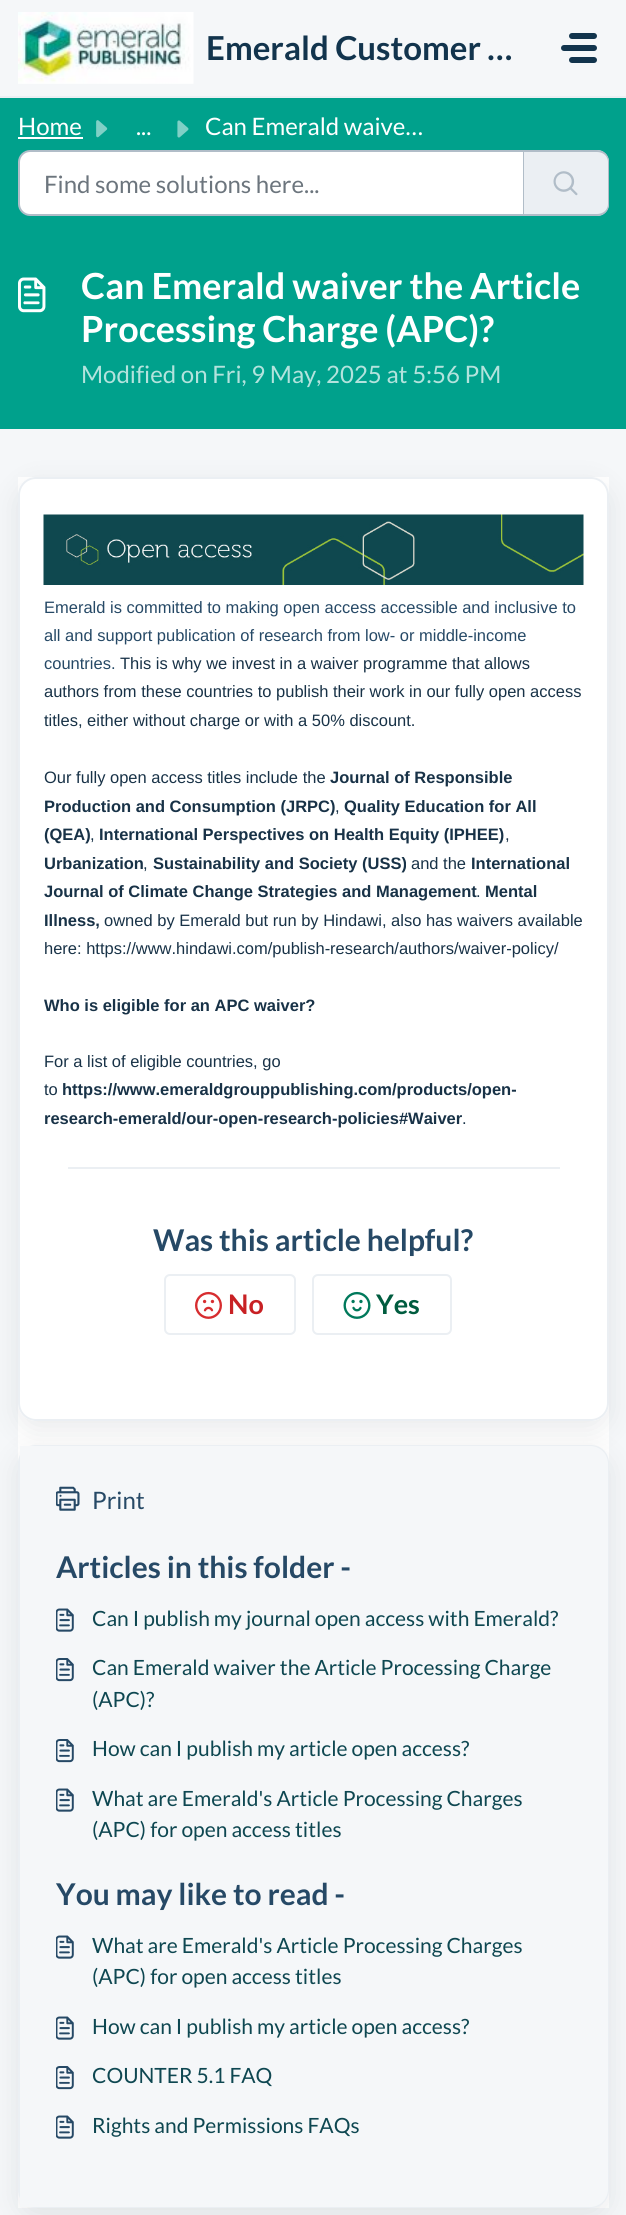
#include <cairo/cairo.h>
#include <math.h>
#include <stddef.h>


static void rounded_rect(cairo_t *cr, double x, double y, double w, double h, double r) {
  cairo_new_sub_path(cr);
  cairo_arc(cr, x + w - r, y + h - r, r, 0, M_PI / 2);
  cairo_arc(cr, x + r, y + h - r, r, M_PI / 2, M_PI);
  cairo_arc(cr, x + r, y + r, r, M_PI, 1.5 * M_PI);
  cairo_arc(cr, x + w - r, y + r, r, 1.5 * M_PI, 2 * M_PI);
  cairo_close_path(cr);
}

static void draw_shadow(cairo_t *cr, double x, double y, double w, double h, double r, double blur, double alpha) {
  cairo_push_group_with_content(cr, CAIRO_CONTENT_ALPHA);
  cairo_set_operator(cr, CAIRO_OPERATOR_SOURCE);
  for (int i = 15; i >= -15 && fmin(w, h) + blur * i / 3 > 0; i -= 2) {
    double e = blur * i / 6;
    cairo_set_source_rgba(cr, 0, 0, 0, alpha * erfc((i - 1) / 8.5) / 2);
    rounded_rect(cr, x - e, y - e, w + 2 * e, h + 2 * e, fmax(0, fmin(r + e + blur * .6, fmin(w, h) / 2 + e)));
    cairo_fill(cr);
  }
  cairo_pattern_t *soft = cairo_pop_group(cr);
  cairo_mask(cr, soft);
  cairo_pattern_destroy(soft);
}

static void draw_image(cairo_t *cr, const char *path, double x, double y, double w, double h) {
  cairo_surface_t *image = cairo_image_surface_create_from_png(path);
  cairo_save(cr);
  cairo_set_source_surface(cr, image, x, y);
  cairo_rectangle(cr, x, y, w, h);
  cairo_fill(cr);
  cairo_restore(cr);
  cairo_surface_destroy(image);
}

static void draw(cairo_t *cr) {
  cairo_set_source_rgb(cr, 245 / 255.0, 247 / 255.0, 249 / 255.0);
  cairo_paint(cr);
  cairo_set_source_rgb(cr, 235 / 255.0, 239 / 255.0, 243 / 255.0);
  cairo_rectangle(cr, 0, 96, 626, 2);
  cairo_fill(cr);
  draw_image(cr, "images/1.png", 18, 12, 176, 72);
  cairo_set_source_rgb(cr, 18 / 255.0, 52 / 255.0, 77 / 255.0);
  rounded_rect(cr, 569, 33, 28, 6, 3);
  cairo_fill(cr);
  rounded_rect(cr, 561, 45, 36, 6, 3);
  cairo_fill(cr);
  rounded_rect(cr, 569, 57, 28, 6, 3);
  cairo_fill(cr);
  cairo_set_source_rgb(cr, 0, 161 / 255.0, 140 / 255.0);
  cairo_rectangle(cr, 0, 98, 626, 331);
  cairo_fill(cr);
  cairo_set_source_rgb(cr, 1, 1, 1);
  cairo_rectangle(cr, 18, 137, 65, 2);
  cairo_fill(cr);
  draw_image(cr, "images/2.png", 96, 120, 12, 18);
  draw_image(cr, "images/3.png", 177, 120, 12, 18);
  cairo_new_path(cr);
  cairo_move_to(cr, 30, 151);
  cairo_line_to(cr, 524, 151);
  cairo_line_to(cr, 524, 215);
  cairo_line_to(cr, 30, 215);
  cairo_curve_to(cr, 24, 215, 19, 210, 19, 204);
  cairo_line_to(cr, 19, 162);
  cairo_curve_to(cr, 19, 156, 24, 151, 30, 151);
  cairo_close_path(cr);
  cairo_fill_preserve(cr);
  cairo_set_source_rgb(cr, 177 / 255.0, 189 / 255.0, 200 / 255.0);
  cairo_stroke(cr);
  cairo_set_source_rgb(cr, 235 / 255.0, 239 / 255.0, 243 / 255.0);
  cairo_new_path(cr);
  cairo_move_to(cr, 524, 150);
  cairo_line_to(cr, 597, 150);
  cairo_curve_to(cr, 603.5, 150, 609, 155.5, 609, 162);
  cairo_line_to(cr, 609, 204);
  cairo_curve_to(cr, 609, 210.5, 603.5, 216, 597, 216);
  cairo_line_to(cr, 524, 216);
  cairo_close_path(cr);
  cairo_fill(cr);
  cairo_set_source_rgb(cr, 177 / 255.0, 189 / 255.0, 200 / 255.0);
  cairo_set_fill_rule(cr, CAIRO_FILL_RULE_EVEN_ODD);
  cairo_new_path(cr);
  cairo_move_to(cr, 524, 150);
  cairo_line_to(cr, 597, 150);
  cairo_curve_to(cr, 604, 150, 609, 155, 609, 162);
  cairo_line_to(cr, 609, 204);
  cairo_curve_to(cr, 609, 211, 604, 216, 597, 216);
  cairo_line_to(cr, 524, 216);
  cairo_close_path(cr);
  cairo_move_to(cr, 524, 152);
  cairo_line_to(cr, 597, 152);
  cairo_curve_to(cr, 603, 152, 608, 156, 608, 162);
  cairo_line_to(cr, 608, 204);
  cairo_curve_to(cr, 608, 210, 603, 214, 597, 214);
  cairo_line_to(cr, 524, 214);
  cairo_close_path(cr);
  cairo_fill(cr);
  draw_image(cr, "images/4.png", 553, 171, 25, 25);
  draw_image(cr, "images/5.png", 18, 277, 28, 36);
  cairo_set_source_rgb(cr, 1, 1, 1);
  cairo_rectangle(cr, 18, 477, 591, 1731);
  cairo_fill(cr);
  cairo_save(cr);
  cairo_new_path(cr);
  cairo_move_to(cr, 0, 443);
  cairo_line_to(cr, 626, 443);
  cairo_line_to(cr, 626, 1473);
  cairo_line_to(cr, 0, 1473);
  cairo_close_path(cr);
  cairo_move_to(cr, 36, 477);
  cairo_line_to(cr, 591, 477);
  cairo_curve_to(cr, 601, 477, 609, 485, 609, 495);
  cairo_line_to(cr, 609, 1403);
  cairo_curve_to(cr, 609, 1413, 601, 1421, 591, 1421);
  cairo_line_to(cr, 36, 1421);
  cairo_curve_to(cr, 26, 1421, 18, 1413, 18, 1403);
  cairo_line_to(cr, 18, 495);
  cairo_curve_to(cr, 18, 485, 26, 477, 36, 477);
  cairo_close_path(cr);
  cairo_clip(cr);
  cairo_set_source_rgb(cr, 39 / 255.0, 49 / 255.0, 58 / 255.0);
  draw_shadow(cr, 18, 486, 591, 944, 18, 14, 0.1);
  cairo_restore(cr);
  rounded_rect(cr, 19, 478, 589, 942, 17);
  cairo_set_source_rgb(cr, 235 / 255.0, 239 / 255.0, 243 / 255.0);
  cairo_stroke(cr);
  draw_image(cr, "images/6.png", 43, 514, 541, 71);
  cairo_rectangle(cr, 68, 1167, 492, 2);
  cairo_fill(cr);
  rounded_rect(cr, 165, 1275, 130, 59, 5);
  cairo_stroke(cr);
  draw_image(cr, "images/7.png", 195, 1291, 27, 28);
  rounded_rect(cr, 313, 1275, 138, 59, 5);
  cairo_stroke(cr);
  draw_image(cr, "images/8.png", 343, 1291, 28, 28);
  cairo_set_source_rgb(cr, 39 / 255.0, 49 / 255.0, 58 / 255.0);
  draw_shadow(cr, 18, 1454, 591, 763, 18, 14, 0.1);
  rounded_rect(cr, 19, 1446, 589, 761, 17);
  cairo_set_source_rgb(cr, 235 / 255.0, 239 / 255.0, 243 / 255.0);
  cairo_stroke(cr);
  cairo_set_source_rgb(cr, 245 / 255.0, 247 / 255.0, 249 / 255.0);
  cairo_new_path(cr);
  cairo_move_to(cr, 20, 1446);
  cairo_line_to(cr, 590, 1446);
  cairo_curve_to(cr, 600, 1446, 608, 1454, 608, 1464);
  cairo_line_to(cr, 608, 2189);
  cairo_curve_to(cr, 608, 2199, 600, 2207, 590, 2207);
  cairo_line_to(cr, 20, 2207);
  cairo_close_path(cr);
  cairo_fill(cr);
  draw_image(cr, "images/9.png", 56, 1486, 24, 25);
  draw_image(cr, "images/10.png", 56, 1608, 18, 24);
  draw_image(cr, "images/11.png", 56, 1658, 18, 24);
  draw_image(cr, "images/11.png", 56, 1739, 18, 24);
  draw_image(cr, "images/10.png", 56, 1788, 18, 24);
  draw_image(cr, "images/10.png", 56, 1935, 18, 24);
  draw_image(cr, "images/10.png", 56, 2016, 18, 24);
  draw_image(cr, "images/11.png", 56, 2066, 18, 24);
  draw_image(cr, "images/10.png", 56, 2115, 18, 24);
  cairo_select_font_face(cr, "Lato", CAIRO_FONT_SLANT_NORMAL, CAIRO_FONT_WEIGHT_BOLD);
  cairo_set_font_size(cr, 33);
  cairo_set_source_rgb(cr, 18 / 255.0, 52 / 255.0, 77 / 255.0);
  cairo_move_to(cr, 206, 60);
  cairo_show_text(cr, "Emerald Customer …");
  cairo_select_font_face(cr, "Lato", CAIRO_FONT_SLANT_NORMAL, CAIRO_FONT_WEIGHT_NORMAL);
  cairo_set_font_size(cr, 24);
  cairo_set_source_rgb(cr, 1, 1, 1);
  cairo_move_to(cr, 18, 135);
  cairo_show_text(cr, "Home");
  cairo_move_to(cr, 136, 135);
  cairo_show_text(cr, "...");
  cairo_move_to(cr, 205, 135);
  cairo_show_text(cr, "Can Emerald waive…");
  cairo_set_source_rgb(cr, 108 / 255.0, 117 / 255.0, 125 / 255.0);
  cairo_move_to(cr, 44, 193);
  cairo_show_text(cr, "Find some solutions here...");
  cairo_select_font_face(cr, "Lato", CAIRO_FONT_SLANT_NORMAL, CAIRO_FONT_WEIGHT_BOLD);
  cairo_set_font_size(cr, 36);
  cairo_set_source_rgb(cr, 1, 1, 1);
  cairo_move_to(cr, 81, 299);
  cairo_show_text(cr, "Can Emerald waiver the Article");
  cairo_move_to(cr, 81, 342);
  cairo_show_text(cr, "Processing Charge (APC)?");
  cairo_select_font_face(cr, "Lato", CAIRO_FONT_SLANT_NORMAL, CAIRO_FONT_WEIGHT_NORMAL);
  cairo_set_font_size(cr, 24);
  cairo_set_source_rgb(cr, 179 / 255.0, 227 / 255.0, 221 / 255.0);
  cairo_move_to(cr, 81, 383);
  cairo_show_text(cr, "Modified on Fri, 9 May, 2025 at 5:56 PM");
  cairo_select_font_face(cr, "Liberation Sans", CAIRO_FONT_SLANT_NORMAL, CAIRO_FONT_WEIGHT_NORMAL);
  cairo_set_font_size(cr, 16.5);
  cairo_set_source_rgb(cr, 38 / 255.0, 73 / 255.0, 102 / 255.0);
  cairo_move_to(cr, 44, 613);
  cairo_show_text(cr, "Emerald is committed to making open access accessible and inclusive to");
  cairo_move_to(cr, 44, 641);
  cairo_show_text(cr, "all and support publication of research from low- or middle-income");
  cairo_move_to(cr, 44, 669);
  cairo_show_text(cr, "countries.");
  cairo_set_source_rgb(cr, 24 / 255.0, 50 / 255.0, 71 / 255.0);
  cairo_move_to(cr, 120, 669);
  cairo_show_text(cr, "This is why we invest in a waiver programme that allows");
  cairo_move_to(cr, 44, 697);
  cairo_show_text(cr, "authors from these countries to publish their work in our fully open access");
  cairo_move_to(cr, 44, 726);
  cairo_show_text(cr, "titles, either without charge or with a 50% discount.");
  cairo_move_to(cr, 44, 783);
  cairo_show_text(cr, "Our fully open access titles include the");
  cairo_select_font_face(cr, "Liberation Sans", CAIRO_FONT_SLANT_NORMAL, CAIRO_FONT_WEIGHT_BOLD);
  cairo_move_to(cr, 330, 783);
  cairo_show_text(cr, "Journal of Responsible");
  cairo_move_to(cr, 44, 812);
  cairo_show_text(cr, "Production and Consumption (JRPC)");
  cairo_select_font_face(cr, "Liberation Sans", CAIRO_FONT_SLANT_NORMAL, CAIRO_FONT_WEIGHT_NORMAL);
  cairo_move_to(cr, 335, 812);
  cairo_show_text(cr, ",");
  cairo_select_font_face(cr, "Liberation Sans", CAIRO_FONT_SLANT_NORMAL, CAIRO_FONT_WEIGHT_BOLD);
  cairo_move_to(cr, 344, 812);
  cairo_show_text(cr, "Quality Education for All");
  cairo_move_to(cr, 44, 840);
  cairo_show_text(cr, "(QEA)");
  cairo_select_font_face(cr, "Liberation Sans", CAIRO_FONT_SLANT_NORMAL, CAIRO_FONT_WEIGHT_NORMAL);
  cairo_move_to(cr, 90, 840);
  cairo_show_text(cr, ",");
  cairo_select_font_face(cr, "Liberation Sans", CAIRO_FONT_SLANT_NORMAL, CAIRO_FONT_WEIGHT_BOLD);
  cairo_move_to(cr, 99, 840);
  cairo_show_text(cr, "International Perspectives on Health Equity (IPHEE)");
  cairo_select_font_face(cr, "Liberation Sans", CAIRO_FONT_SLANT_NORMAL, CAIRO_FONT_WEIGHT_NORMAL);
  cairo_move_to(cr, 505, 840);
  cairo_show_text(cr, ",");
  cairo_select_font_face(cr, "Liberation Sans", CAIRO_FONT_SLANT_NORMAL, CAIRO_FONT_WEIGHT_BOLD);
  cairo_move_to(cr, 44, 869);
  cairo_show_text(cr, "Urbanization");
  cairo_select_font_face(cr, "Liberation Sans", CAIRO_FONT_SLANT_NORMAL, CAIRO_FONT_WEIGHT_NORMAL);
  cairo_move_to(cr, 143, 869);
  cairo_show_text(cr, ",");
  cairo_select_font_face(cr, "Liberation Sans", CAIRO_FONT_SLANT_NORMAL, CAIRO_FONT_WEIGHT_BOLD);
  cairo_move_to(cr, 153, 869);
  cairo_show_text(cr, "Sustainability and Society (USS)");
  cairo_select_font_face(cr, "Liberation Sans", CAIRO_FONT_SLANT_NORMAL, CAIRO_FONT_WEIGHT_NORMAL);
  cairo_move_to(cr, 411, 869);
  cairo_show_text(cr, "and the");
  cairo_select_font_face(cr, "Liberation Sans", CAIRO_FONT_SLANT_NORMAL, CAIRO_FONT_WEIGHT_BOLD);
  cairo_move_to(cr, 471, 869);
  cairo_show_text(cr, "International");
  cairo_move_to(cr, 44, 897);
  cairo_show_text(cr, "Journal of Climate Change Strategies and Management");
  cairo_select_font_face(cr, "Liberation Sans", CAIRO_FONT_SLANT_NORMAL, CAIRO_FONT_WEIGHT_NORMAL);
  cairo_move_to(cr, 476, 897);
  cairo_show_text(cr, ".");
  cairo_select_font_face(cr, "Liberation Sans", CAIRO_FONT_SLANT_NORMAL, CAIRO_FONT_WEIGHT_BOLD);
  cairo_move_to(cr, 485, 897);
  cairo_show_text(cr, "Mental");
  cairo_move_to(cr, 44, 926);
  cairo_show_text(cr, "Illness,");
  cairo_select_font_face(cr, "Liberation Sans", CAIRO_FONT_SLANT_NORMAL, CAIRO_FONT_WEIGHT_NORMAL);
  cairo_move_to(cr, 104, 926);
  cairo_show_text(cr, "owned by Emerald but run by Hindawi, also has waivers available");
  cairo_move_to(cr, 44, 954);
  cairo_show_text(cr, "here: https://www.hindawi.com/publish-research/authors/waiver-policy/");
  cairo_select_font_face(cr, "Liberation Sans", CAIRO_FONT_SLANT_NORMAL, CAIRO_FONT_WEIGHT_BOLD);
  cairo_move_to(cr, 44, 1011);
  cairo_show_text(cr, "Who is eligible for an APC waiver?");
  cairo_select_font_face(cr, "Liberation Sans", CAIRO_FONT_SLANT_NORMAL, CAIRO_FONT_WEIGHT_NORMAL);
  cairo_move_to(cr, 44, 1067);
  cairo_show_text(cr, "For a list of eligible countries, go");
  cairo_move_to(cr, 44, 1095);
  cairo_show_text(cr, "to");
  cairo_select_font_face(cr, "Liberation Sans", CAIRO_FONT_SLANT_NORMAL, CAIRO_FONT_WEIGHT_BOLD);
  cairo_move_to(cr, 62, 1095);
  cairo_show_text(cr, "https://www.emeraldgrouppublishing.com/products/open-");
  cairo_move_to(cr, 44, 1124);
  cairo_show_text(cr, "research-emerald/our-open-research-policies#Waiver");
  cairo_select_font_face(cr, "Liberation Sans", CAIRO_FONT_SLANT_NORMAL, CAIRO_FONT_WEIGHT_NORMAL);
  cairo_move_to(cr, 462, 1124);
  cairo_show_text(cr, ".");
  cairo_select_font_face(cr, "Lato", CAIRO_FONT_SLANT_NORMAL, CAIRO_FONT_WEIGHT_BOLD);
  cairo_set_font_size(cr, 30);
  cairo_set_source_rgb(cr, 38 / 255.0, 73 / 255.0, 102 / 255.0);
  cairo_move_to(cr, 153, 1251);
  cairo_show_text(cr, "Was this article helpful?");
  cairo_set_font_size(cr, 27);
  cairo_set_source_rgb(cr, 200 / 255.0, 33 / 255.0, 36 / 255.0);
  cairo_move_to(cr, 228, 1314);
  cairo_show_text(cr, "No");
  cairo_set_source_rgb(cr, 0, 92 / 255.0, 63 / 255.0);
  cairo_move_to(cr, 376, 1314);
  cairo_show_text(cr, "Yes");
  cairo_select_font_face(cr, "Lato", CAIRO_FONT_SLANT_NORMAL, CAIRO_FONT_WEIGHT_NORMAL);
  cairo_set_font_size(cr, 24);
  cairo_set_source_rgb(cr, 38 / 255.0, 73 / 255.0, 102 / 255.0);
  cairo_move_to(cr, 92, 1509);
  cairo_show_text(cr, "Print");
  cairo_select_font_face(cr, "Lato", CAIRO_FONT_SLANT_NORMAL, CAIRO_FONT_WEIGHT_BOLD);
  cairo_set_font_size(cr, 30);
  cairo_move_to(cr, 56, 1578);
  cairo_show_text(cr, "Articles in this folder -");
  cairo_select_font_face(cr, "Lato", CAIRO_FONT_SLANT_NORMAL, CAIRO_FONT_WEIGHT_NORMAL);
  cairo_set_font_size(cr, 21);
  cairo_set_source_rgb(cr, 14 / 255.0, 71 / 255.0, 81 / 255.0);
  cairo_move_to(cr, 92, 1626);
  cairo_show_text(cr, "Can I publish my journal open access with Emerald?");
  cairo_move_to(cr, 92, 1675);
  cairo_show_text(cr, "Can Emerald waiver the Article Processing Charge");
  cairo_move_to(cr, 92, 1707);
  cairo_show_text(cr, "(APC)?");
  cairo_move_to(cr, 92, 1756);
  cairo_show_text(cr, "How can I publish my article open access?");
  cairo_move_to(cr, 92, 1806);
  cairo_show_text(cr, "What are Emerald's Article Processing Charges");
  cairo_move_to(cr, 92, 1837);
  cairo_show_text(cr, "(APC) for open access titles");
  cairo_select_font_face(cr, "Lato", CAIRO_FONT_SLANT_NORMAL, CAIRO_FONT_WEIGHT_BOLD);
  cairo_set_font_size(cr, 30);
  cairo_set_source_rgb(cr, 38 / 255.0, 73 / 255.0, 102 / 255.0);
  cairo_move_to(cr, 56, 1905);
  cairo_show_text(cr, "You may like to read -");
  cairo_select_font_face(cr, "Lato", CAIRO_FONT_SLANT_NORMAL, CAIRO_FONT_WEIGHT_NORMAL);
  cairo_set_font_size(cr, 21);
  cairo_set_source_rgb(cr, 14 / 255.0, 71 / 255.0, 81 / 255.0);
  cairo_move_to(cr, 92, 1953);
  cairo_show_text(cr, "What are Emerald's Article Processing Charges");
  cairo_move_to(cr, 92, 1984);
  cairo_show_text(cr, "(APC) for open access titles");
  cairo_move_to(cr, 92, 2034);
  cairo_show_text(cr, "How can I publish my article open access?");
  cairo_move_to(cr, 92, 2083);
  cairo_show_text(cr, "COUNTER 5.1 FAQ");
  cairo_move_to(cr, 92, 2133);
  cairo_show_text(cr, "Rights and Permissions FAQs");
}

int main(void) {
  cairo_surface_t *surface = cairo_image_surface_create(CAIRO_FORMAT_RGB24, 626, 2215);
  cairo_t *cr = cairo_create(surface);
  cairo_font_options_t *options = cairo_font_options_create();
  cairo_font_options_set_hint_metrics(options, CAIRO_HINT_METRICS_OFF);
  cairo_font_options_set_hint_style(options, CAIRO_HINT_STYLE_NONE);
  cairo_set_font_options(cr, options);
  cairo_set_miter_limit(cr, 4);
  draw(cr);
  cairo_surface_write_to_png(surface, "out.png");
  cairo_font_options_destroy(options);
  cairo_destroy(cr);
  cairo_surface_destroy(surface);
  return 0;
}
